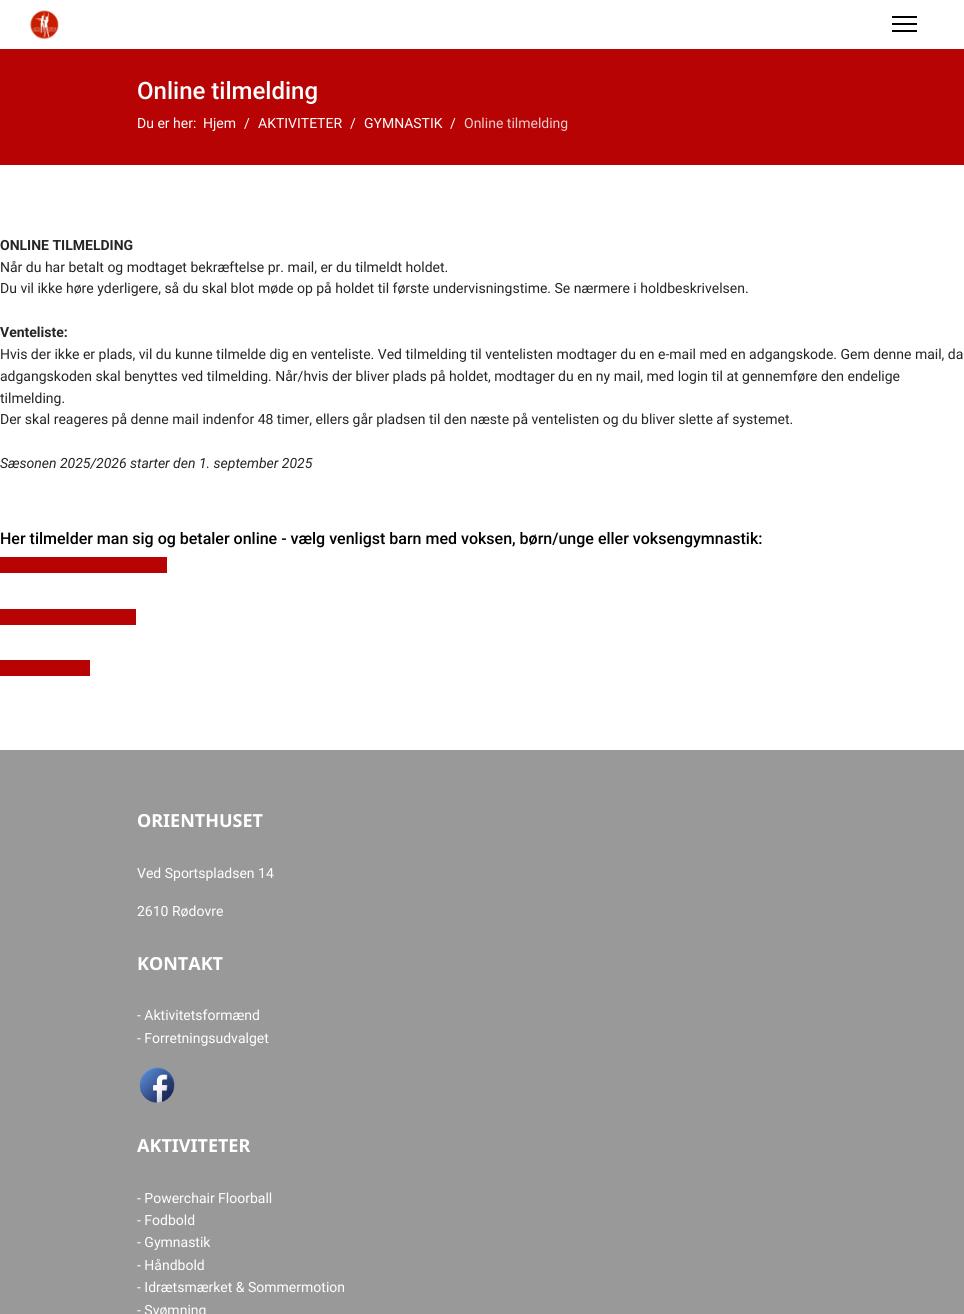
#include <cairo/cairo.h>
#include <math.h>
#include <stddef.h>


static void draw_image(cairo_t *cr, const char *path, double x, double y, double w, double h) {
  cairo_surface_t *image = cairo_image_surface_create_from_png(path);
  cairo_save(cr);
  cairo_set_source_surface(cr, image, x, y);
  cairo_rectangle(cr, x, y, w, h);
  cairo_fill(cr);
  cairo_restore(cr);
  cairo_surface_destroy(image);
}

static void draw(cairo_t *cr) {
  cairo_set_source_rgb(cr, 1, 1, 1);
  cairo_paint(cr);
  draw_image(cr, "images/1.png", 30, 10, 29, 30);
  cairo_set_source_rgb(cr, 0, 0, 0);
  cairo_rectangle(cr, 892, 16, 25, 2);
  cairo_fill(cr);
  cairo_rectangle(cr, 892, 23, 25, 2);
  cairo_fill(cr);
  cairo_rectangle(cr, 892, 30, 25, 2);
  cairo_fill(cr);
  cairo_set_source_rgb(cr, 183 / 255.0, 3 / 255.0, 3 / 255.0);
  cairo_rectangle(cr, 0, 49, 964, 116);
  cairo_fill(cr);
  cairo_rectangle(cr, 0, 557, 167, 16);
  cairo_fill(cr);
  cairo_rectangle(cr, 0, 609, 136, 16);
  cairo_fill(cr);
  cairo_rectangle(cr, 0, 660, 90, 16);
  cairo_fill(cr);
  cairo_set_source_rgb(cr, 153 / 255.0, 153 / 255.0, 153 / 255.0);
  cairo_rectangle(cr, 0, 750, 964, 564);
  cairo_fill(cr);
  draw_image(cr, "images/2.png", 139, 1067, 36, 36);
  cairo_select_font_face(cr, "Roboto Medium", CAIRO_FONT_SLANT_NORMAL, CAIRO_FONT_WEIGHT_NORMAL);
  cairo_set_font_size(cr, 24);
  cairo_set_source_rgb(cr, 1, 1, 1);
  cairo_move_to(cr, 137, 99);
  cairo_show_text(cr, "Online tilmelding");
  cairo_select_font_face(cr, "Roboto", CAIRO_FONT_SLANT_NORMAL, CAIRO_FONT_WEIGHT_NORMAL);
  cairo_set_font_size(cr, 14);
  cairo_move_to(cr, 137, 128);
  cairo_show_text(cr, "Du er her:");
  cairo_move_to(cr, 203, 128);
  cairo_show_text(cr, "Hjem");
  cairo_move_to(cr, 244, 128);
  cairo_show_text(cr, "/");
  cairo_move_to(cr, 258, 128);
  cairo_show_text(cr, "AKTIVITETER");
  cairo_move_to(cr, 350, 128);
  cairo_show_text(cr, "/");
  cairo_move_to(cr, 364, 128);
  cairo_show_text(cr, "GYMNASTIK");
  cairo_move_to(cr, 450, 128);
  cairo_show_text(cr, "/");
  cairo_set_source_rgb(cr, 241 / 255.0, 205 / 255.0, 205 / 255.0);
  cairo_move_to(cr, 464, 128);
  cairo_show_text(cr, "Online tilmelding");
  cairo_select_font_face(cr, "Roboto", CAIRO_FONT_SLANT_NORMAL, CAIRO_FONT_WEIGHT_BOLD);
  cairo_set_source_rgb(cr, 37 / 255.0, 37 / 255.0, 37 / 255.0);
  cairo_move_to(cr, 0, 250);
  cairo_show_text(cr, "ONLINE TILMELDING");
  cairo_select_font_face(cr, "Roboto", CAIRO_FONT_SLANT_NORMAL, CAIRO_FONT_WEIGHT_NORMAL);
  cairo_move_to(cr, 0, 272);
  cairo_show_text(cr, "Når du har betalt og modtaget bekræftelse pr. mail, er du tilmeldt holdet.");
  cairo_move_to(cr, 0, 293);
  cairo_show_text(cr, "Du vil ikke høre yderligere, så du skal blot møde op på holdet til første undervisningstime. Se nærmere i holdbeskrivelsen.");
  cairo_select_font_face(cr, "Roboto", CAIRO_FONT_SLANT_NORMAL, CAIRO_FONT_WEIGHT_BOLD);
  cairo_move_to(cr, 0, 337);
  cairo_show_text(cr, "Venteliste:");
  cairo_select_font_face(cr, "Roboto", CAIRO_FONT_SLANT_NORMAL, CAIRO_FONT_WEIGHT_NORMAL);
  cairo_move_to(cr, 0, 359);
  cairo_show_text(cr, "Hvis der ikke er plads, vil du kunne tilmelde dig en venteliste. Ved tilmelding til ventelisten modtager du en e-mail med en adgangskode. Gem denne mail, da");
  cairo_move_to(cr, 0, 381);
  cairo_show_text(cr, "adgangskoden skal benyttes ved tilmelding. Når/hvis der bliver plads på holdet, modtager du en ny mail, med login til at gennemføre den endelige");
  cairo_move_to(cr, 0, 403);
  cairo_show_text(cr, "tilmelding.");
  cairo_move_to(cr, 0, 424);
  cairo_show_text(cr, "Der skal reageres på denne mail indenfor 48 timer, ellers går pladsen til den næste på ventelisten og du bliver slette af systemet.");
  cairo_select_font_face(cr, "Roboto", CAIRO_FONT_SLANT_ITALIC, CAIRO_FONT_WEIGHT_NORMAL);
  cairo_move_to(cr, 0, 468);
  cairo_show_text(cr, "Sæsonen 2025/2026 starter den 1. september 2025");
  cairo_select_font_face(cr, "Roboto Medium", CAIRO_FONT_SLANT_NORMAL, CAIRO_FONT_WEIGHT_NORMAL);
  cairo_set_font_size(cr, 16);
  cairo_set_source_rgb(cr, 0, 0, 0);
  cairo_move_to(cr, 0, 544);
  cairo_show_text(cr, "Her tilmelder man sig og betaler online - vælg venligst barn med voksen, børn/unge eller voksengymnastik:");
  cairo_select_font_face(cr, "Noto Sans", CAIRO_FONT_SLANT_NORMAL, CAIRO_FONT_WEIGHT_BOLD);
  cairo_set_font_size(cr, 18);
  cairo_set_source_rgb(cr, 1, 1, 1);
  cairo_move_to(cr, 137, 827);
  cairo_show_text(cr, "ORIENTHUSET");
  cairo_select_font_face(cr, "Roboto", CAIRO_FONT_SLANT_NORMAL, CAIRO_FONT_WEIGHT_NORMAL);
  cairo_set_font_size(cr, 14);
  cairo_move_to(cr, 137, 878);
  cairo_show_text(cr, "Ved Sportspladsen 14");
  cairo_move_to(cr, 137, 916);
  cairo_show_text(cr, "2610 Rødovre");
  cairo_select_font_face(cr, "Noto Sans", CAIRO_FONT_SLANT_NORMAL, CAIRO_FONT_WEIGHT_BOLD);
  cairo_set_font_size(cr, 18);
  cairo_move_to(cr, 137, 970);
  cairo_show_text(cr, "KONTAKT");
  cairo_select_font_face(cr, "Roboto", CAIRO_FONT_SLANT_NORMAL, CAIRO_FONT_WEIGHT_NORMAL);
  cairo_set_font_size(cr, 14);
  cairo_move_to(cr, 137, 1020);
  cairo_show_text(cr, "- Aktivitetsformænd");
  cairo_move_to(cr, 137, 1043);
  cairo_show_text(cr, "- Forretningsudvalget");
  cairo_select_font_face(cr, "Noto Sans", CAIRO_FONT_SLANT_NORMAL, CAIRO_FONT_WEIGHT_BOLD);
  cairo_set_font_size(cr, 18);
  cairo_move_to(cr, 137, 1152);
  cairo_show_text(cr, "AKTIVITETER");
  cairo_select_font_face(cr, "Roboto", CAIRO_FONT_SLANT_NORMAL, CAIRO_FONT_WEIGHT_NORMAL);
  cairo_set_font_size(cr, 14);
  cairo_move_to(cr, 137, 1203);
  cairo_show_text(cr, "- Powerchair Floorball");
  cairo_move_to(cr, 137, 1225);
  cairo_show_text(cr, "- Fodbold");
  cairo_move_to(cr, 137, 1247);
  cairo_show_text(cr, "- Gymnastik");
  cairo_move_to(cr, 137, 1270);
  cairo_show_text(cr, "- Håndbold");
  cairo_move_to(cr, 137, 1292);
  cairo_show_text(cr, "- Idrætsmærket & Sommermotion");
  cairo_move_to(cr, 137, 1315);
  cairo_show_text(cr, "- Svømning");
}

int main(void) {
  cairo_surface_t *surface = cairo_image_surface_create(CAIRO_FORMAT_RGB24, 964, 1314);
  cairo_t *cr = cairo_create(surface);
  cairo_font_options_t *options = cairo_font_options_create();
  cairo_font_options_set_hint_metrics(options, CAIRO_HINT_METRICS_OFF);
  cairo_font_options_set_hint_style(options, CAIRO_HINT_STYLE_NONE);
  cairo_set_font_options(cr, options);
  cairo_set_miter_limit(cr, 4);
  draw(cr);
  cairo_surface_write_to_png(surface, "out.png");
  cairo_font_options_destroy(options);
  cairo_destroy(cr);
  cairo_surface_destroy(surface);
  return 0;
}
